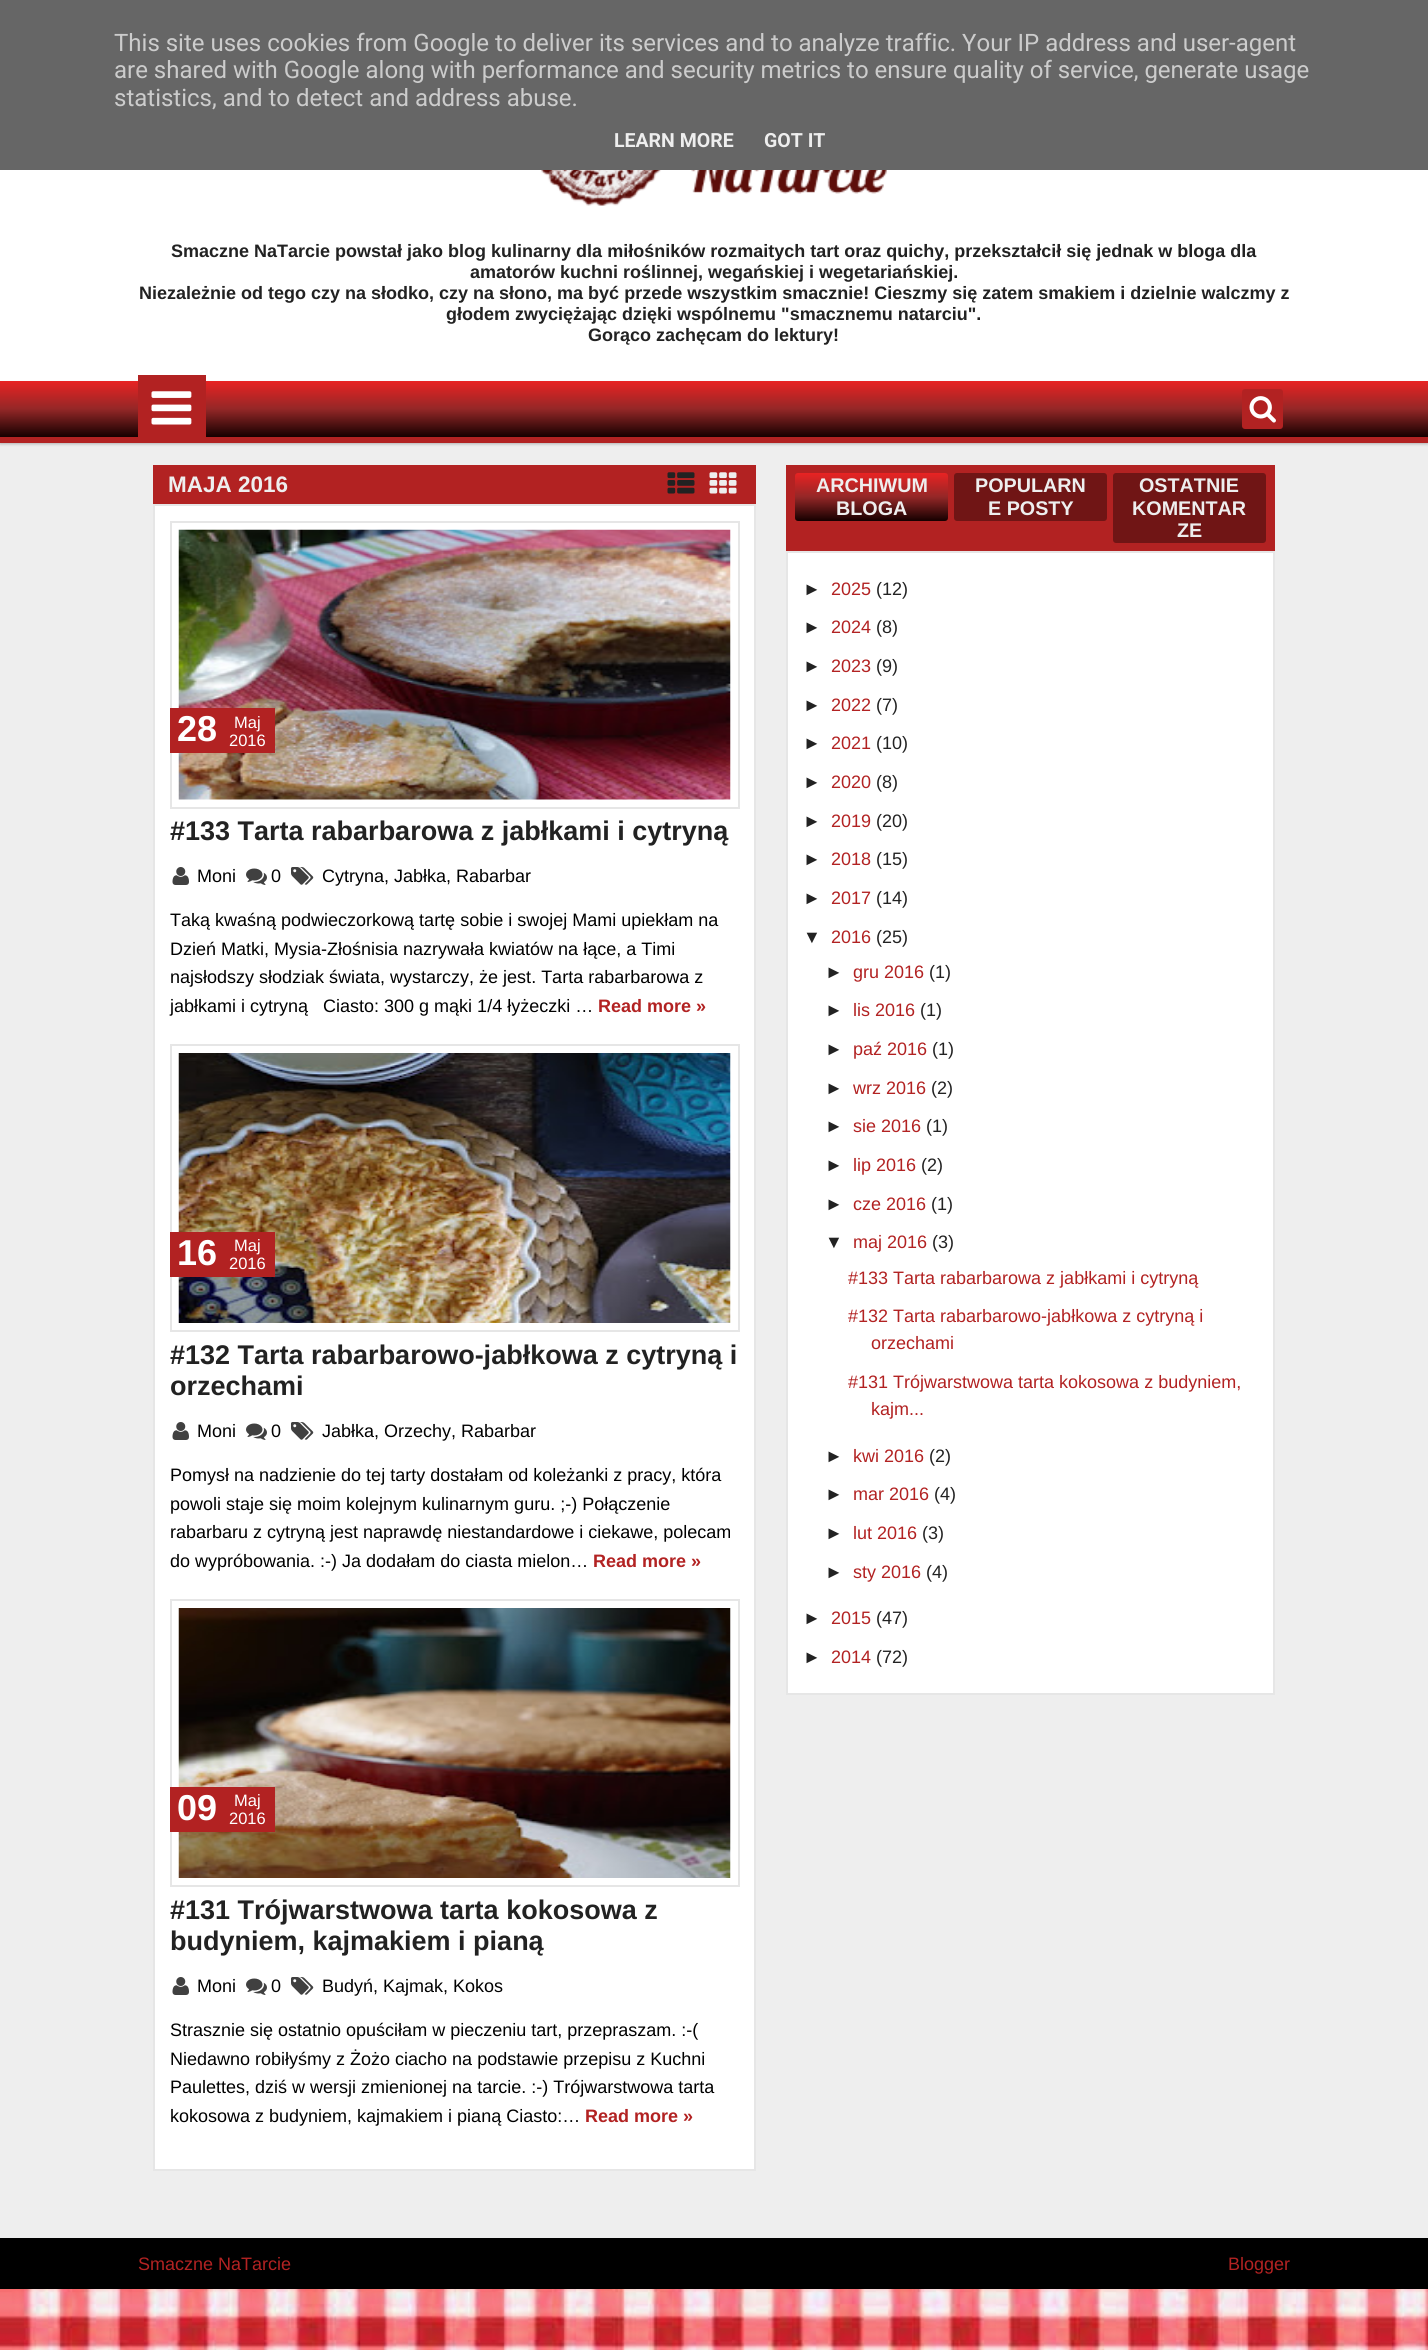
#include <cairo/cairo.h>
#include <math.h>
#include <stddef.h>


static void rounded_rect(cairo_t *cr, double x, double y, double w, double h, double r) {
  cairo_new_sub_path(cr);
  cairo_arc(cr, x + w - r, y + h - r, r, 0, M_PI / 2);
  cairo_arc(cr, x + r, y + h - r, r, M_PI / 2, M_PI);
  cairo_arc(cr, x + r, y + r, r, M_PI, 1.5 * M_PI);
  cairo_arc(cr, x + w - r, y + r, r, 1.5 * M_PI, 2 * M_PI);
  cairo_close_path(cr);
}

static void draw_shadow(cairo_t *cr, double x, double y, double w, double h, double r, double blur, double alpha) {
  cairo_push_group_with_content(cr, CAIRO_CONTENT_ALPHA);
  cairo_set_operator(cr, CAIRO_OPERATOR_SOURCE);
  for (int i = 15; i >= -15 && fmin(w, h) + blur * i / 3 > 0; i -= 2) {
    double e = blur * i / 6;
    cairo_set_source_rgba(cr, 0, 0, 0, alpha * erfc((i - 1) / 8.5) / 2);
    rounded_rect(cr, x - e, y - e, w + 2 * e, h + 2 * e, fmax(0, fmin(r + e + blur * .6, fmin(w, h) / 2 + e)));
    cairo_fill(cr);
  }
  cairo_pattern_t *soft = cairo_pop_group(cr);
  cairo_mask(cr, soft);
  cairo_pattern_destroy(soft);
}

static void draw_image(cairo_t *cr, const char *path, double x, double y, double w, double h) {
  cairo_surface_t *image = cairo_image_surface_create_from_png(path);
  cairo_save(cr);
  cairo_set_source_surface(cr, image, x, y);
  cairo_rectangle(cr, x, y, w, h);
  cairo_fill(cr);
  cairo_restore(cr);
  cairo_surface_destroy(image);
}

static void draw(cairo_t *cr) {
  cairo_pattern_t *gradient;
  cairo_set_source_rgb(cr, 1, 1, 1);
  cairo_paint(cr);
  draw_image(cr, "images/1.png", 0, 2289, 1428, 61);
  cairo_set_source_rgb(cr, 102 / 255.0, 102 / 255.0, 102 / 255.0);
  cairo_rectangle(cr, 0, 0, 1428, 170);
  cairo_fill(cr);
  cairo_set_source_rgb(cr, 238 / 255.0, 238 / 255.0, 238 / 255.0);
  cairo_rectangle(cr, 0, 443, 1428, 1795);
  cairo_fill(cr);
  draw_image(cr, "images/2.png", 541, 170, 346, 36);
  cairo_set_source_rgb(cr, 0, 0, 0);
  draw_shadow(cr, 0, 383, 1428, 61, 0, 1.5, 0.26);
  gradient = cairo_pattern_create_linear(714, 381, 714, 437);
  cairo_pattern_add_color_stop_rgba(gradient, 0, 233 / 255.0, 35 / 255.0, 35 / 255.0, 1);
  cairo_pattern_add_color_stop_rgba(gradient, 0.5, 148 / 255.0, 39 / 255.0, 39 / 255.0, 1);
  cairo_pattern_add_color_stop_rgba(gradient, 1, 21 / 255.0, 0, 0, 1);
  cairo_set_source(cr, gradient);
  cairo_pattern_destroy(gradient);
  cairo_rectangle(cr, 0, 381, 1428, 56);
  cairo_fill(cr);
  cairo_set_source_rgb(cr, 178 / 255.0, 34 / 255.0, 34 / 255.0);
  cairo_rectangle(cr, 138, 375, 68, 62);
  cairo_fill(cr);
  draw_image(cr, "images/3.png", 151, 391, 41, 34);
  rounded_rect(cr, 1242, 389, 41, 40, 3);
  cairo_fill(cr);
  draw_image(cr, "images/4.png", 1249, 396, 27, 27);
  cairo_rectangle(cr, 0, 437, 1428, 6);
  cairo_fill(cr);
  cairo_rectangle(cr, 153, 465, 603, 39);
  cairo_fill(cr);
  draw_image(cr, "images/5.png", 667, 472, 28, 22);
  draw_image(cr, "images/6.png", 709, 472, 28, 22);
  cairo_set_source_rgb(cr, 1, 1, 1);
  cairo_rectangle(cr, 154, 505, 601, 1665);
  cairo_fill_preserve(cr);
  cairo_set_source_rgb(cr, 230 / 255.0, 230 / 255.0, 230 / 255.0);
  cairo_stroke(cr);
  cairo_rectangle(cr, 171, 522, 568, 286);
  cairo_stroke(cr);
  draw_image(cr, "images/7.png", 178, 529, 553, 271);
  cairo_set_source_rgb(cr, 178 / 255.0, 34 / 255.0, 34 / 255.0);
  cairo_rectangle(cr, 170, 708, 105, 45);
  cairo_fill(cr);
  draw_image(cr, "images/8.png", 172, 867, 17, 18);
  draw_image(cr, "images/9.png", 246, 868, 21, 17);
  draw_image(cr, "images/10.png", 291, 867, 23, 18);
  cairo_rectangle(cr, 171, 1045, 568, 286);
  cairo_set_source_rgb(cr, 230 / 255.0, 230 / 255.0, 230 / 255.0);
  cairo_stroke(cr);
  draw_image(cr, "images/11.png", 178, 1053, 553, 270);
  cairo_set_source_rgb(cr, 178 / 255.0, 34 / 255.0, 34 / 255.0);
  cairo_rectangle(cr, 170, 1232, 105, 45);
  cairo_fill(cr);
  draw_image(cr, "images/8.png", 172, 1422, 17, 18);
  draw_image(cr, "images/9.png", 246, 1423, 21, 17);
  draw_image(cr, "images/10.png", 291, 1422, 23, 18);
  cairo_rectangle(cr, 171, 1600, 568, 286);
  cairo_set_source_rgb(cr, 230 / 255.0, 230 / 255.0, 230 / 255.0);
  cairo_stroke(cr);
  draw_image(cr, "images/12.png", 178, 1608, 553, 270);
  cairo_set_source_rgb(cr, 178 / 255.0, 34 / 255.0, 34 / 255.0);
  cairo_rectangle(cr, 170, 1787, 105, 45);
  cairo_fill(cr);
  draw_image(cr, "images/8.png", 172, 1977, 17, 18);
  draw_image(cr, "images/9.png", 246, 1978, 21, 17);
  draw_image(cr, "images/10.png", 291, 1977, 23, 18);
  cairo_rectangle(cr, 786, 465, 489, 86);
  cairo_fill(cr);
  gradient = cairo_pattern_create_linear(872, 473, 872, 521);
  cairo_pattern_add_color_stop_rgba(gradient, 0, 233 / 255.0, 35 / 255.0, 35 / 255.0, 1);
  cairo_pattern_add_color_stop_rgba(gradient, 0.5, 148 / 255.0, 39 / 255.0, 39 / 255.0, 1);
  cairo_pattern_add_color_stop_rgba(gradient, 1, 21 / 255.0, 0, 0, 1);
  cairo_set_source(cr, gradient);
  cairo_pattern_destroy(gradient);
  rounded_rect(cr, 795, 473, 153, 48, 3);
  cairo_fill(cr);
  cairo_set_source_rgb(cr, 112 / 255.0, 21 / 255.0, 21 / 255.0);
  rounded_rect(cr, 954, 473, 153, 48, 3);
  cairo_fill(cr);
  rounded_rect(cr, 1113, 473, 153, 70, 3);
  cairo_fill(cr);
  cairo_set_source_rgb(cr, 1, 1, 1);
  cairo_rectangle(cr, 787, 552, 487, 1142);
  cairo_fill_preserve(cr);
  cairo_set_source_rgb(cr, 230 / 255.0, 230 / 255.0, 230 / 255.0);
  cairo_stroke(cr);
  cairo_set_source_rgb(cr, 0, 0, 0);
  cairo_rectangle(cr, 0, 2238, 1428, 51);
  cairo_fill(cr);
  cairo_select_font_face(cr, "Roboto", CAIRO_FONT_SLANT_NORMAL, CAIRO_FONT_WEIGHT_NORMAL);
  cairo_set_font_size(cr, 24);
  cairo_set_source_rgb(cr, 204 / 255.0, 204 / 255.0, 204 / 255.0);
  cairo_move_to(cr, 114, 51);
  cairo_show_text(cr, "This site uses cookies from Google to deliver its services and to analyze traffic. Your IP address and user-agent");
  cairo_move_to(cr, 114, 78);
  cairo_show_text(cr, "are shared with Google along with performance and security metrics to ensure quality of service, generate usage");
  cairo_move_to(cr, 114, 106);
  cairo_show_text(cr, "statistics, and to detect and address abuse.");
  cairo_select_font_face(cr, "Roboto", CAIRO_FONT_SLANT_NORMAL, CAIRO_FONT_WEIGHT_BOLD);
  cairo_set_font_size(cr, 19.5);
  cairo_set_source_rgb(cr, 238 / 255.0, 238 / 255.0, 238 / 255.0);
  cairo_move_to(cr, 614, 147);
  cairo_show_text(cr, "LEARN MORE");
  cairo_move_to(cr, 764, 147);
  cairo_show_text(cr, "GOT IT");
  cairo_select_font_face(cr, "Liberation Sans", CAIRO_FONT_SLANT_NORMAL, CAIRO_FONT_WEIGHT_BOLD);
  cairo_set_font_size(cr, 18);
  cairo_set_source_rgb(cr, 34 / 255.0, 34 / 255.0, 34 / 255.0);
  cairo_move_to(cr, 171, 257);
  cairo_show_text(cr, "Smaczne NaTarcie powstał jako blog kulinarny dla miłośników rozmaitych tart oraz quichy, przekształcił się jednak w bloga dla");
  cairo_move_to(cr, 470, 278);
  cairo_show_text(cr, "amatorów kuchni roślinnej, wegańskiej i wegetariańskiej.");
  cairo_move_to(cr, 139, 299);
  cairo_show_text(cr, "Niezależnie od tego czy na słodko, czy na słono, ma być przede wszystkim smacznie! Cieszmy się zatem smakiem i dzielnie walczmy z");
  cairo_move_to(cr, 446, 320);
  cairo_show_text(cr, "głodem zwyciężając dzięki wspólnemu \"smacznemu natarciu\".");
  cairo_move_to(cr, 588, 341);
  cairo_show_text(cr, "Gorąco zachęcam do lektury!");
  cairo_set_font_size(cr, 22.5);
  cairo_set_source_rgb(cr, 238 / 255.0, 238 / 255.0, 238 / 255.0);
  cairo_move_to(cr, 168, 492);
  cairo_show_text(cr, "MAJA 2016");
  cairo_set_font_size(cr, 36);
  cairo_set_source_rgb(cr, 1, 1, 1);
  cairo_move_to(cr, 177, 741);
  cairo_show_text(cr, "28");
  cairo_select_font_face(cr, "Liberation Sans", CAIRO_FONT_SLANT_NORMAL, CAIRO_FONT_WEIGHT_NORMAL);
  cairo_set_font_size(cr, 16.5);
  cairo_move_to(cr, 234, 728);
  cairo_show_text(cr, "Maj");
  cairo_move_to(cr, 229, 746);
  cairo_show_text(cr, "2016");
  cairo_select_font_face(cr, "Liberation Sans", CAIRO_FONT_SLANT_NORMAL, CAIRO_FONT_WEIGHT_BOLD);
  cairo_set_font_size(cr, 27);
  cairo_set_source_rgb(cr, 34 / 255.0, 34 / 255.0, 34 / 255.0);
  cairo_move_to(cr, 170, 840);
  cairo_show_text(cr, "#133 Tarta rabarbarowa z jabłkami i cytryną");
  cairo_select_font_face(cr, "Liberation Sans", CAIRO_FONT_SLANT_NORMAL, CAIRO_FONT_WEIGHT_NORMAL);
  cairo_set_font_size(cr, 18);
  cairo_set_source_rgb(cr, 0, 0, 0);
  cairo_move_to(cr, 197, 882);
  cairo_show_text(cr, "Moni");
  cairo_move_to(cr, 271, 882);
  cairo_show_text(cr, "0");
  cairo_move_to(cr, 322, 882);
  cairo_show_text(cr, "Cytryna");
  cairo_move_to(cr, 384, 882);
  cairo_show_text(cr, ", Jabłka");
  cairo_move_to(cr, 446, 882);
  cairo_show_text(cr, ", Rabarbar");
  cairo_move_to(cr, 170, 926);
  cairo_show_text(cr, "Taką kwaśną podwieczorkową tartę sobie i swojej Mami upiekłam na");
  cairo_move_to(cr, 170, 955);
  cairo_show_text(cr, "Dzień Matki, Mysia-Złośnisia nazrywała kwiatów na łące, a Timi");
  cairo_move_to(cr, 170, 983);
  cairo_show_text(cr, "najsłodszy słodziak świata, wystarczy, że jest. Tarta rabarbarowa z");
  cairo_move_to(cr, 170, 1012);
  cairo_show_text(cr, "jabłkami i cytryną   Ciasto: 300 g mąki 1/4 łyżeczki …");
  cairo_select_font_face(cr, "Liberation Sans", CAIRO_FONT_SLANT_NORMAL, CAIRO_FONT_WEIGHT_BOLD);
  cairo_set_source_rgb(cr, 178 / 255.0, 34 / 255.0, 34 / 255.0);
  cairo_move_to(cr, 598, 1012);
  cairo_show_text(cr, "Read more »");
  cairo_set_font_size(cr, 36);
  cairo_set_source_rgb(cr, 1, 1, 1);
  cairo_move_to(cr, 177, 1265);
  cairo_show_text(cr, "16");
  cairo_select_font_face(cr, "Liberation Sans", CAIRO_FONT_SLANT_NORMAL, CAIRO_FONT_WEIGHT_NORMAL);
  cairo_set_font_size(cr, 16.5);
  cairo_move_to(cr, 234, 1251);
  cairo_show_text(cr, "Maj");
  cairo_move_to(cr, 229, 1269);
  cairo_show_text(cr, "2016");
  cairo_select_font_face(cr, "Liberation Sans", CAIRO_FONT_SLANT_NORMAL, CAIRO_FONT_WEIGHT_BOLD);
  cairo_set_font_size(cr, 27);
  cairo_set_source_rgb(cr, 34 / 255.0, 34 / 255.0, 34 / 255.0);
  cairo_move_to(cr, 170, 1364);
  cairo_show_text(cr, "#132 Tarta rabarbarowo-jabłkowa z cytryną i");
  cairo_move_to(cr, 170, 1395);
  cairo_show_text(cr, "orzechami");
  cairo_select_font_face(cr, "Liberation Sans", CAIRO_FONT_SLANT_NORMAL, CAIRO_FONT_WEIGHT_NORMAL);
  cairo_set_font_size(cr, 18);
  cairo_set_source_rgb(cr, 0, 0, 0);
  cairo_move_to(cr, 197, 1437);
  cairo_show_text(cr, "Moni");
  cairo_move_to(cr, 271, 1437);
  cairo_show_text(cr, "0");
  cairo_move_to(cr, 322, 1437);
  cairo_show_text(cr, "Jabłka");
  cairo_move_to(cr, 374, 1437);
  cairo_show_text(cr, ", Orzechy");
  cairo_move_to(cr, 451, 1437);
  cairo_show_text(cr, ", Rabarbar");
  cairo_move_to(cr, 170, 1481);
  cairo_show_text(cr, "Pomysł na nadzienie do tej tarty dostałam od koleżanki z pracy, która");
  cairo_move_to(cr, 170, 1510);
  cairo_show_text(cr, "powoli staje się moim kolejnym kulinarnym guru. ;-) Połączenie");
  cairo_move_to(cr, 170, 1538);
  cairo_show_text(cr, "rabarbaru z cytryną jest naprawdę niestandardowe i ciekawe, polecam");
  cairo_move_to(cr, 170, 1567);
  cairo_show_text(cr, "do wypróbowania. :-) Ja dodałam do ciasta mielon…");
  cairo_select_font_face(cr, "Liberation Sans", CAIRO_FONT_SLANT_NORMAL, CAIRO_FONT_WEIGHT_BOLD);
  cairo_set_source_rgb(cr, 178 / 255.0, 34 / 255.0, 34 / 255.0);
  cairo_move_to(cr, 593, 1567);
  cairo_show_text(cr, "Read more »");
  cairo_set_font_size(cr, 36);
  cairo_set_source_rgb(cr, 1, 1, 1);
  cairo_move_to(cr, 177, 1820);
  cairo_show_text(cr, "09");
  cairo_select_font_face(cr, "Liberation Sans", CAIRO_FONT_SLANT_NORMAL, CAIRO_FONT_WEIGHT_NORMAL);
  cairo_set_font_size(cr, 16.5);
  cairo_move_to(cr, 234, 1806);
  cairo_show_text(cr, "Maj");
  cairo_move_to(cr, 229, 1824);
  cairo_show_text(cr, "2016");
  cairo_select_font_face(cr, "Liberation Sans", CAIRO_FONT_SLANT_NORMAL, CAIRO_FONT_WEIGHT_BOLD);
  cairo_set_font_size(cr, 27);
  cairo_set_source_rgb(cr, 34 / 255.0, 34 / 255.0, 34 / 255.0);
  cairo_move_to(cr, 170, 1919);
  cairo_show_text(cr, "#131 Trójwarstwowa tarta kokosowa z");
  cairo_move_to(cr, 170, 1950);
  cairo_show_text(cr, "budyniem, kajmakiem i pianą");
  cairo_select_font_face(cr, "Liberation Sans", CAIRO_FONT_SLANT_NORMAL, CAIRO_FONT_WEIGHT_NORMAL);
  cairo_set_font_size(cr, 18);
  cairo_set_source_rgb(cr, 0, 0, 0);
  cairo_move_to(cr, 197, 1992);
  cairo_show_text(cr, "Moni");
  cairo_move_to(cr, 271, 1992);
  cairo_show_text(cr, "0");
  cairo_move_to(cr, 322, 1992);
  cairo_show_text(cr, "Budyń");
  cairo_move_to(cr, 373, 1992);
  cairo_show_text(cr, ", Kajmak");
  cairo_move_to(cr, 443, 1992);
  cairo_show_text(cr, ", Kokos");
  cairo_move_to(cr, 170, 2036);
  cairo_show_text(cr, "Strasznie się ostatnio opuściłam w pieczeniu tart, przepraszam. :-(");
  cairo_move_to(cr, 170, 2065);
  cairo_show_text(cr, "Niedawno robiłyśmy z Żożo ciacho na podstawie przepisu z Kuchni");
  cairo_move_to(cr, 170, 2093);
  cairo_show_text(cr, "Paulettes, dziś w wersji zmienionej na tarcie. :-) Trójwarstwowa tarta");
  cairo_move_to(cr, 170, 2122);
  cairo_show_text(cr, "kokosowa z budyniem, kajmakiem i pianą Ciasto:…");
  cairo_select_font_face(cr, "Liberation Sans", CAIRO_FONT_SLANT_NORMAL, CAIRO_FONT_WEIGHT_BOLD);
  cairo_set_source_rgb(cr, 178 / 255.0, 34 / 255.0, 34 / 255.0);
  cairo_move_to(cr, 585, 2122);
  cairo_show_text(cr, "Read more »");
  cairo_set_font_size(cr, 19.75);
  cairo_set_source_rgb(cr, 238 / 255.0, 238 / 255.0, 238 / 255.0);
  cairo_move_to(cr, 816, 492);
  cairo_show_text(cr, "ARCHIWUM");
  cairo_move_to(cr, 836, 515);
  cairo_show_text(cr, "BLOGA");
  cairo_move_to(cr, 975, 492);
  cairo_show_text(cr, "POPULARN");
  cairo_move_to(cr, 988, 515);
  cairo_show_text(cr, "E POSTY");
  cairo_move_to(cr, 1139, 492);
  cairo_show_text(cr, "OSTATNIE");
  cairo_move_to(cr, 1132, 515);
  cairo_show_text(cr, "KOMENTAR");
  cairo_move_to(cr, 1177, 537);
  cairo_show_text(cr, "ZE");
  cairo_select_font_face(cr, "Liberation Sans", CAIRO_FONT_SLANT_NORMAL, CAIRO_FONT_WEIGHT_NORMAL);
  cairo_set_font_size(cr, 18);
  cairo_set_source_rgb(cr, 34 / 255.0, 34 / 255.0, 34 / 255.0);
  cairo_move_to(cr, 803, 595);
  cairo_show_text(cr, "►");
  cairo_set_source_rgb(cr, 178 / 255.0, 34 / 255.0, 34 / 255.0);
  cairo_move_to(cr, 831, 595);
  cairo_show_text(cr, "2025");
  cairo_set_source_rgb(cr, 34 / 255.0, 34 / 255.0, 34 / 255.0);
  cairo_move_to(cr, 876, 595);
  cairo_show_text(cr, "(12)");
  cairo_move_to(cr, 803, 633);
  cairo_show_text(cr, "►");
  cairo_set_source_rgb(cr, 178 / 255.0, 34 / 255.0, 34 / 255.0);
  cairo_move_to(cr, 831, 633);
  cairo_show_text(cr, "2024");
  cairo_set_source_rgb(cr, 34 / 255.0, 34 / 255.0, 34 / 255.0);
  cairo_move_to(cr, 876, 633);
  cairo_show_text(cr, "(8)");
  cairo_move_to(cr, 803, 672);
  cairo_show_text(cr, "►");
  cairo_set_source_rgb(cr, 178 / 255.0, 34 / 255.0, 34 / 255.0);
  cairo_move_to(cr, 831, 672);
  cairo_show_text(cr, "2023");
  cairo_set_source_rgb(cr, 34 / 255.0, 34 / 255.0, 34 / 255.0);
  cairo_move_to(cr, 876, 672);
  cairo_show_text(cr, "(9)");
  cairo_move_to(cr, 803, 711);
  cairo_show_text(cr, "►");
  cairo_set_source_rgb(cr, 178 / 255.0, 34 / 255.0, 34 / 255.0);
  cairo_move_to(cr, 831, 711);
  cairo_show_text(cr, "2022");
  cairo_set_source_rgb(cr, 34 / 255.0, 34 / 255.0, 34 / 255.0);
  cairo_move_to(cr, 876, 711);
  cairo_show_text(cr, "(7)");
  cairo_move_to(cr, 803, 749);
  cairo_show_text(cr, "►");
  cairo_set_source_rgb(cr, 178 / 255.0, 34 / 255.0, 34 / 255.0);
  cairo_move_to(cr, 831, 749);
  cairo_show_text(cr, "2021");
  cairo_set_source_rgb(cr, 34 / 255.0, 34 / 255.0, 34 / 255.0);
  cairo_move_to(cr, 876, 749);
  cairo_show_text(cr, "(10)");
  cairo_move_to(cr, 803, 788);
  cairo_show_text(cr, "►");
  cairo_set_source_rgb(cr, 178 / 255.0, 34 / 255.0, 34 / 255.0);
  cairo_move_to(cr, 831, 788);
  cairo_show_text(cr, "2020");
  cairo_set_source_rgb(cr, 34 / 255.0, 34 / 255.0, 34 / 255.0);
  cairo_move_to(cr, 876, 788);
  cairo_show_text(cr, "(8)");
  cairo_move_to(cr, 803, 827);
  cairo_show_text(cr, "►");
  cairo_set_source_rgb(cr, 178 / 255.0, 34 / 255.0, 34 / 255.0);
  cairo_move_to(cr, 831, 827);
  cairo_show_text(cr, "2019");
  cairo_set_source_rgb(cr, 34 / 255.0, 34 / 255.0, 34 / 255.0);
  cairo_move_to(cr, 876, 827);
  cairo_show_text(cr, "(20)");
  cairo_move_to(cr, 803, 865);
  cairo_show_text(cr, "►");
  cairo_set_source_rgb(cr, 178 / 255.0, 34 / 255.0, 34 / 255.0);
  cairo_move_to(cr, 831, 865);
  cairo_show_text(cr, "2018");
  cairo_set_source_rgb(cr, 34 / 255.0, 34 / 255.0, 34 / 255.0);
  cairo_move_to(cr, 876, 865);
  cairo_show_text(cr, "(15)");
  cairo_move_to(cr, 803, 904);
  cairo_show_text(cr, "►");
  cairo_set_source_rgb(cr, 178 / 255.0, 34 / 255.0, 34 / 255.0);
  cairo_move_to(cr, 831, 904);
  cairo_show_text(cr, "2017");
  cairo_set_source_rgb(cr, 34 / 255.0, 34 / 255.0, 34 / 255.0);
  cairo_move_to(cr, 876, 904);
  cairo_show_text(cr, "(14)");
  cairo_move_to(cr, 803, 943);
  cairo_show_text(cr, "▼");
  cairo_set_source_rgb(cr, 178 / 255.0, 34 / 255.0, 34 / 255.0);
  cairo_move_to(cr, 831, 943);
  cairo_show_text(cr, "2016");
  cairo_set_source_rgb(cr, 34 / 255.0, 34 / 255.0, 34 / 255.0);
  cairo_move_to(cr, 876, 943);
  cairo_show_text(cr, "(25)");
  cairo_move_to(cr, 825, 978);
  cairo_show_text(cr, "►");
  cairo_set_source_rgb(cr, 178 / 255.0, 34 / 255.0, 34 / 255.0);
  cairo_move_to(cr, 853, 978);
  cairo_show_text(cr, "gru 2016");
  cairo_set_source_rgb(cr, 34 / 255.0, 34 / 255.0, 34 / 255.0);
  cairo_move_to(cr, 929, 978);
  cairo_show_text(cr, "(1)");
  cairo_move_to(cr, 825, 1016);
  cairo_show_text(cr, "►");
  cairo_set_source_rgb(cr, 178 / 255.0, 34 / 255.0, 34 / 255.0);
  cairo_move_to(cr, 853, 1016);
  cairo_show_text(cr, "lis 2016");
  cairo_set_source_rgb(cr, 34 / 255.0, 34 / 255.0, 34 / 255.0);
  cairo_move_to(cr, 920, 1016);
  cairo_show_text(cr, "(1)");
  cairo_move_to(cr, 825, 1055);
  cairo_show_text(cr, "►");
  cairo_set_source_rgb(cr, 178 / 255.0, 34 / 255.0, 34 / 255.0);
  cairo_move_to(cr, 853, 1055);
  cairo_show_text(cr, "paź 2016");
  cairo_set_source_rgb(cr, 34 / 255.0, 34 / 255.0, 34 / 255.0);
  cairo_move_to(cr, 932, 1055);
  cairo_show_text(cr, "(1)");
  cairo_move_to(cr, 825, 1094);
  cairo_show_text(cr, "►");
  cairo_set_source_rgb(cr, 178 / 255.0, 34 / 255.0, 34 / 255.0);
  cairo_move_to(cr, 853, 1094);
  cairo_show_text(cr, "wrz 2016");
  cairo_set_source_rgb(cr, 34 / 255.0, 34 / 255.0, 34 / 255.0);
  cairo_move_to(cr, 931, 1094);
  cairo_show_text(cr, "(2)");
  cairo_move_to(cr, 825, 1132);
  cairo_show_text(cr, "►");
  cairo_set_source_rgb(cr, 178 / 255.0, 34 / 255.0, 34 / 255.0);
  cairo_move_to(cr, 853, 1132);
  cairo_show_text(cr, "sie 2016");
  cairo_set_source_rgb(cr, 34 / 255.0, 34 / 255.0, 34 / 255.0);
  cairo_move_to(cr, 926, 1132);
  cairo_show_text(cr, "(1)");
  cairo_move_to(cr, 825, 1171);
  cairo_show_text(cr, "►");
  cairo_set_source_rgb(cr, 178 / 255.0, 34 / 255.0, 34 / 255.0);
  cairo_move_to(cr, 853, 1171);
  cairo_show_text(cr, "lip 2016");
  cairo_set_source_rgb(cr, 34 / 255.0, 34 / 255.0, 34 / 255.0);
  cairo_move_to(cr, 921, 1171);
  cairo_show_text(cr, "(2)");
  cairo_move_to(cr, 825, 1210);
  cairo_show_text(cr, "►");
  cairo_set_source_rgb(cr, 178 / 255.0, 34 / 255.0, 34 / 255.0);
  cairo_move_to(cr, 853, 1210);
  cairo_show_text(cr, "cze 2016");
  cairo_set_source_rgb(cr, 34 / 255.0, 34 / 255.0, 34 / 255.0);
  cairo_move_to(cr, 931, 1210);
  cairo_show_text(cr, "(1)");
  cairo_move_to(cr, 825, 1248);
  cairo_show_text(cr, "▼");
  cairo_set_source_rgb(cr, 178 / 255.0, 34 / 255.0, 34 / 255.0);
  cairo_move_to(cr, 853, 1248);
  cairo_show_text(cr, "maj 2016");
  cairo_set_source_rgb(cr, 34 / 255.0, 34 / 255.0, 34 / 255.0);
  cairo_move_to(cr, 932, 1248);
  cairo_show_text(cr, "(3)");
  cairo_set_source_rgb(cr, 178 / 255.0, 34 / 255.0, 34 / 255.0);
  cairo_move_to(cr, 848, 1284);
  cairo_show_text(cr, "#133 Tarta rabarbarowa z jabłkami i cytryną");
  cairo_move_to(cr, 848, 1322);
  cairo_show_text(cr, "#132 Tarta rabarbarowo-jabłkowa z cytryną i");
  cairo_move_to(cr, 871, 1349);
  cairo_show_text(cr, "orzechami");
  cairo_move_to(cr, 848, 1388);
  cairo_show_text(cr, "#131 Trójwarstwowa tarta kokosowa z budyniem,");
  cairo_move_to(cr, 871, 1415);
  cairo_show_text(cr, "kajm...");
  cairo_set_source_rgb(cr, 34 / 255.0, 34 / 255.0, 34 / 255.0);
  cairo_move_to(cr, 825, 1462);
  cairo_show_text(cr, "►");
  cairo_set_source_rgb(cr, 178 / 255.0, 34 / 255.0, 34 / 255.0);
  cairo_move_to(cr, 853, 1462);
  cairo_show_text(cr, "kwi 2016");
  cairo_set_source_rgb(cr, 34 / 255.0, 34 / 255.0, 34 / 255.0);
  cairo_move_to(cr, 929, 1462);
  cairo_show_text(cr, "(2)");
  cairo_move_to(cr, 825, 1500);
  cairo_show_text(cr, "►");
  cairo_set_source_rgb(cr, 178 / 255.0, 34 / 255.0, 34 / 255.0);
  cairo_move_to(cr, 853, 1500);
  cairo_show_text(cr, "mar 2016");
  cairo_set_source_rgb(cr, 34 / 255.0, 34 / 255.0, 34 / 255.0);
  cairo_move_to(cr, 934, 1500);
  cairo_show_text(cr, "(4)");
  cairo_move_to(cr, 825, 1539);
  cairo_show_text(cr, "►");
  cairo_set_source_rgb(cr, 178 / 255.0, 34 / 255.0, 34 / 255.0);
  cairo_move_to(cr, 853, 1539);
  cairo_show_text(cr, "lut 2016");
  cairo_set_source_rgb(cr, 34 / 255.0, 34 / 255.0, 34 / 255.0);
  cairo_move_to(cr, 922, 1539);
  cairo_show_text(cr, "(3)");
  cairo_move_to(cr, 825, 1578);
  cairo_show_text(cr, "►");
  cairo_set_source_rgb(cr, 178 / 255.0, 34 / 255.0, 34 / 255.0);
  cairo_move_to(cr, 853, 1578);
  cairo_show_text(cr, "sty 2016");
  cairo_set_source_rgb(cr, 34 / 255.0, 34 / 255.0, 34 / 255.0);
  cairo_move_to(cr, 926, 1578);
  cairo_show_text(cr, "(4)");
  cairo_move_to(cr, 803, 1624);
  cairo_show_text(cr, "►");
  cairo_set_source_rgb(cr, 178 / 255.0, 34 / 255.0, 34 / 255.0);
  cairo_move_to(cr, 831, 1624);
  cairo_show_text(cr, "2015");
  cairo_set_source_rgb(cr, 34 / 255.0, 34 / 255.0, 34 / 255.0);
  cairo_move_to(cr, 876, 1624);
  cairo_show_text(cr, "(47)");
  cairo_move_to(cr, 803, 1663);
  cairo_show_text(cr, "►");
  cairo_set_source_rgb(cr, 178 / 255.0, 34 / 255.0, 34 / 255.0);
  cairo_move_to(cr, 831, 1663);
  cairo_show_text(cr, "2014");
  cairo_set_source_rgb(cr, 34 / 255.0, 34 / 255.0, 34 / 255.0);
  cairo_move_to(cr, 876, 1663);
  cairo_show_text(cr, "(72)");
  cairo_set_source_rgb(cr, 178 / 255.0, 34 / 255.0, 34 / 255.0);
  cairo_move_to(cr, 138, 2270);
  cairo_show_text(cr, "Smaczne NaTarcie");
  cairo_move_to(cr, 1228, 2270);
  cairo_show_text(cr, "Blogger");
}

int main(void) {
  cairo_surface_t *surface = cairo_image_surface_create(CAIRO_FORMAT_RGB24, 1428, 2350);
  cairo_t *cr = cairo_create(surface);
  cairo_font_options_t *options = cairo_font_options_create();
  cairo_font_options_set_hint_metrics(options, CAIRO_HINT_METRICS_OFF);
  cairo_font_options_set_hint_style(options, CAIRO_HINT_STYLE_NONE);
  cairo_set_font_options(cr, options);
  cairo_set_miter_limit(cr, 4);
  draw(cr);
  cairo_surface_write_to_png(surface, "out.png");
  cairo_font_options_destroy(options);
  cairo_destroy(cr);
  cairo_surface_destroy(surface);
  return 0;
}
